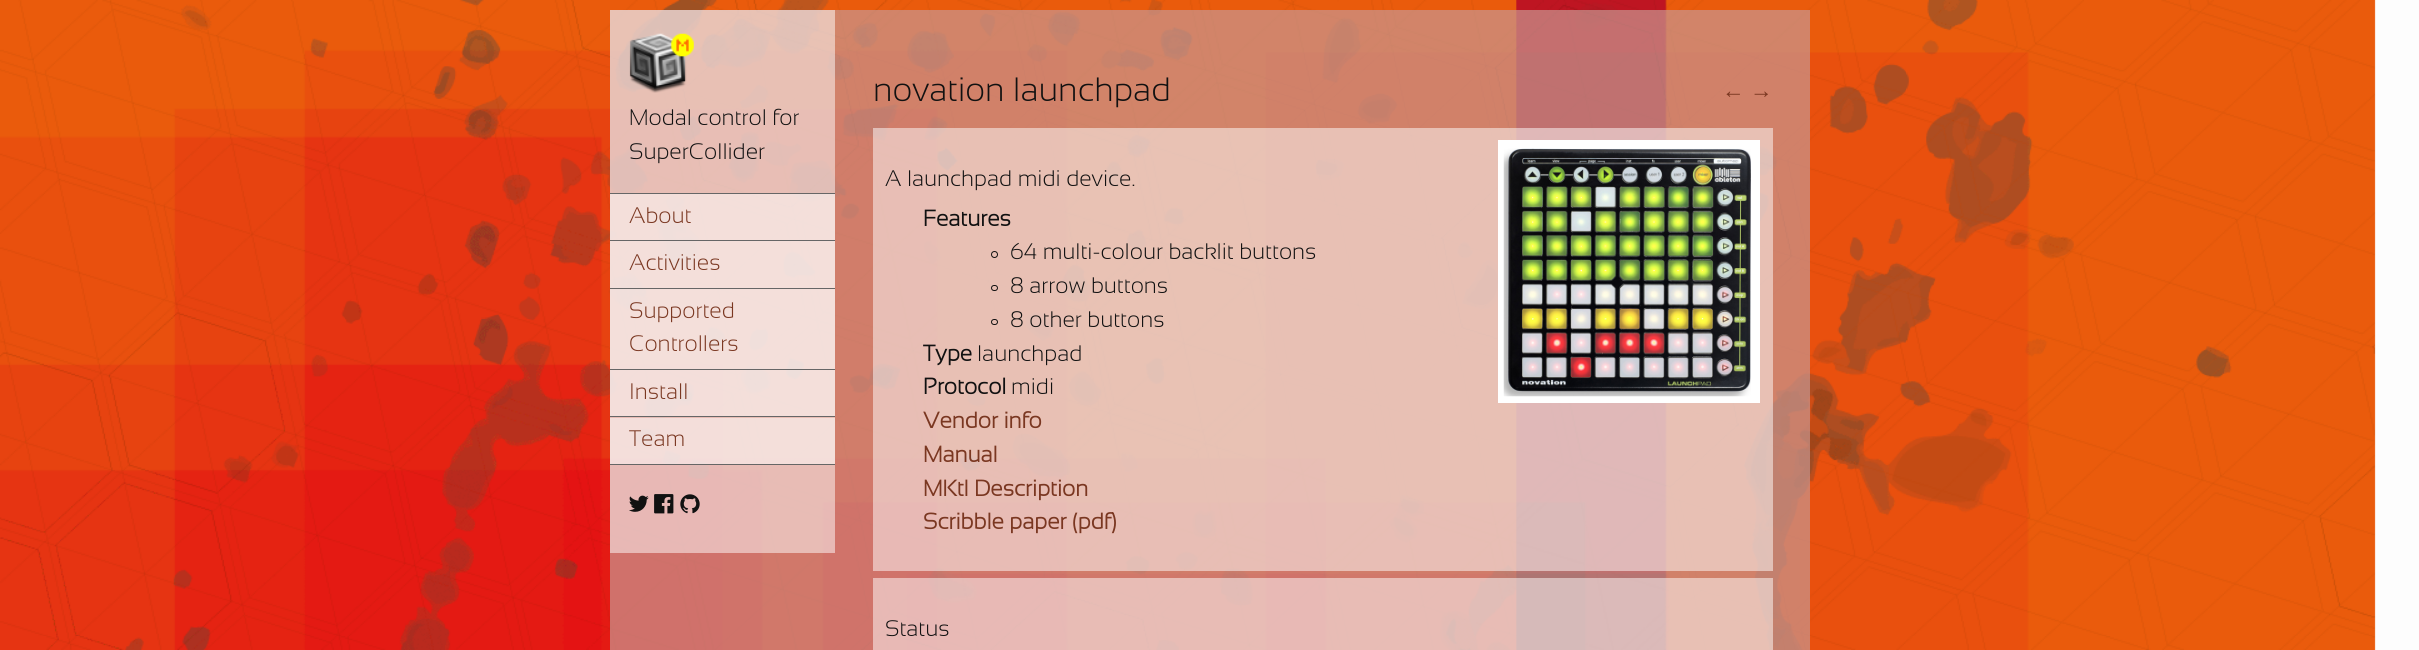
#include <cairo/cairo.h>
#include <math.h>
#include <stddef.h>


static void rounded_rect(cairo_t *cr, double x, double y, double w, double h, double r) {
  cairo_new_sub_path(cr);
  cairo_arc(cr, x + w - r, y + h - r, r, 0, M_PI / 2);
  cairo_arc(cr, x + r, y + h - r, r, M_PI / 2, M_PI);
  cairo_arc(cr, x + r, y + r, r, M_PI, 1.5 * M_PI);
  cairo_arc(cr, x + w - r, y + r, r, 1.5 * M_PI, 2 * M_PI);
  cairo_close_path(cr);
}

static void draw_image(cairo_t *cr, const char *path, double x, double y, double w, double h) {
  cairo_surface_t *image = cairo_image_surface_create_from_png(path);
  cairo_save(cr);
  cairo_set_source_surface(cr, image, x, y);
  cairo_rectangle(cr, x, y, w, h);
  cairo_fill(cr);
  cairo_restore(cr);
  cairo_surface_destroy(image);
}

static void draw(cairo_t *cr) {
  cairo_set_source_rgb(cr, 253 / 255.0, 253 / 255.0, 253 / 255.0);
  cairo_paint(cr);
  draw_image(cr, "images/1.png", 0, 0, 2376, 650);
  cairo_set_source_rgba(cr, 200 / 255.0, 150 / 255.0, 145 / 255.0, 0.7);
  cairo_rectangle(cr, 610, 10, 1200, 640);
  cairo_fill(cr);
  cairo_set_source_rgba(cr, 1, 1, 1, 0.5);
  cairo_rectangle(cr, 610, 10, 225, 543);
  cairo_fill(cr);
  draw_image(cr, "images/2.png", 629, 33, 65, 60);
  cairo_set_source_rgb(cr, 102 / 255.0, 102 / 255.0, 102 / 255.0);
  cairo_rectangle(cr, 610, 193, 225, 1);
  cairo_fill(cr);
  cairo_rectangle(cr, 610, 240, 225, 1);
  cairo_fill(cr);
  cairo_set_source_rgba(cr, 1, 1, 1, 0.5);
  cairo_rectangle(cr, 610, 194, 225, 46);
  cairo_fill(cr);
  cairo_set_source_rgb(cr, 102 / 255.0, 102 / 255.0, 102 / 255.0);
  cairo_rectangle(cr, 610, 288, 225, 1);
  cairo_fill(cr);
  cairo_set_source_rgba(cr, 1, 1, 1, 0.5);
  cairo_rectangle(cr, 610, 241, 225, 47);
  cairo_fill(cr);
  cairo_set_source_rgb(cr, 102 / 255.0, 102 / 255.0, 102 / 255.0);
  cairo_rectangle(cr, 610, 369, 225, 1);
  cairo_fill(cr);
  cairo_set_source_rgba(cr, 1, 1, 1, 0.5);
  cairo_rectangle(cr, 610, 289, 225, 80);
  cairo_fill(cr);
  cairo_set_source_rgb(cr, 102 / 255.0, 102 / 255.0, 102 / 255.0);
  cairo_rectangle(cr, 610, 416, 225, 1);
  cairo_fill(cr);
  cairo_set_source_rgba(cr, 1, 1, 1, 0.5);
  cairo_rectangle(cr, 610, 370, 225, 46);
  cairo_fill(cr);
  cairo_set_source_rgb(cr, 102 / 255.0, 102 / 255.0, 102 / 255.0);
  cairo_rectangle(cr, 610, 464, 225, 1);
  cairo_fill(cr);
  cairo_set_source_rgba(cr, 1, 1, 1, 0.5);
  cairo_rectangle(cr, 610, 418, 225, 46);
  cairo_fill(cr);
  draw_image(cr, "images/3.png", 629, 495, 20, 17);
  draw_image(cr, "images/4.png", 654, 494, 20, 20);
  draw_image(cr, "images/5.png", 680, 494, 20, 20);
  cairo_rectangle(cr, 873, 128, 900, 443);
  cairo_fill(cr);
  cairo_set_source_rgb(cr, 1, 1, 1);
  cairo_rectangle(cr, 1498, 140, 262, 263);
  cairo_fill(cr);
  draw_image(cr, "images/6.png", 1503, 148, 248, 249);
  cairo_arc(cr, 994.5, 254.5, 3, 0, 2 * M_PI);
  cairo_set_source_rgb(cr, 17 / 255.0, 17 / 255.0, 17 / 255.0);
  cairo_set_line_width(cr, 1);
  cairo_stroke(cr);
  rounded_rect(cr, 991.5, 285.5, 6, 5, 2.5);
  cairo_stroke(cr);
  rounded_rect(cr, 991.5, 319.5, 6, 5, 2.5);
  cairo_stroke(cr);
  cairo_set_source_rgba(cr, 1, 1, 1, 0.5);
  cairo_rectangle(cr, 873, 578, 900, 72);
  cairo_fill(cr);
  cairo_select_font_face(cr, "Sansation Light Light", CAIRO_FONT_SLANT_NORMAL, CAIRO_FONT_WEIGHT_NORMAL);
  cairo_set_font_size(cr, 22.5);
  cairo_set_source_rgb(cr, 17 / 255.0, 17 / 255.0, 17 / 255.0);
  cairo_move_to(cr, 629, 125);
  cairo_show_text(cr, "Modal control for");
  cairo_move_to(cr, 629, 159);
  cairo_show_text(cr, "SuperCollider");
  cairo_set_source_rgb(cr, 122 / 255.0, 55 / 255.0, 33 / 255.0);
  cairo_move_to(cr, 629, 223);
  cairo_show_text(cr, "About");
  cairo_move_to(cr, 629, 270);
  cairo_show_text(cr, "Activities");
  cairo_move_to(cr, 629, 318);
  cairo_show_text(cr, "Supported");
  cairo_move_to(cr, 629, 351);
  cairo_show_text(cr, "Controllers");
  cairo_move_to(cr, 629, 399);
  cairo_show_text(cr, "Install");
  cairo_move_to(cr, 629, 446);
  cairo_show_text(cr, "Team");
  cairo_set_font_size(cr, 33.75);
  cairo_set_source_rgb(cr, 17 / 255.0, 17 / 255.0, 17 / 255.0);
  cairo_move_to(cr, 873, 101);
  cairo_show_text(cr, "novation launchpad");
  cairo_select_font_face(cr, "Liberation Sans", CAIRO_FONT_SLANT_NORMAL, CAIRO_FONT_WEIGHT_NORMAL);
  cairo_set_font_size(cr, 22.5);
  cairo_set_source_rgb(cr, 122 / 255.0, 55 / 255.0, 33 / 255.0);
  cairo_move_to(cr, 1722, 98);
  cairo_show_text(cr, "←");
  cairo_move_to(cr, 1750, 98);
  cairo_show_text(cr, "→");
  cairo_select_font_face(cr, "Sansation Light Light", CAIRO_FONT_SLANT_NORMAL, CAIRO_FONT_WEIGHT_NORMAL);
  cairo_set_source_rgb(cr, 17 / 255.0, 17 / 255.0, 17 / 255.0);
  cairo_move_to(cr, 885, 186);
  cairo_show_text(cr, "A launchpad midi device.");
  cairo_select_font_face(cr, "Sansation Light", CAIRO_FONT_SLANT_NORMAL, CAIRO_FONT_WEIGHT_BOLD);
  cairo_move_to(cr, 923, 226);
  cairo_show_text(cr, "Features");
  cairo_select_font_face(cr, "Sansation Light Light", CAIRO_FONT_SLANT_NORMAL, CAIRO_FONT_WEIGHT_NORMAL);
  cairo_move_to(cr, 1010, 259);
  cairo_show_text(cr, "64 multi-colour backlit buttons");
  cairo_move_to(cr, 1010, 293);
  cairo_show_text(cr, "8 arrow buttons");
  cairo_move_to(cr, 1010, 327);
  cairo_show_text(cr, "8 other buttons");
  cairo_select_font_face(cr, "Sansation Light", CAIRO_FONT_SLANT_NORMAL, CAIRO_FONT_WEIGHT_BOLD);
  cairo_move_to(cr, 923, 361);
  cairo_show_text(cr, "Type");
  cairo_select_font_face(cr, "Sansation Light Light", CAIRO_FONT_SLANT_NORMAL, CAIRO_FONT_WEIGHT_NORMAL);
  cairo_move_to(cr, 977, 361);
  cairo_show_text(cr, "launchpad");
  cairo_select_font_face(cr, "Sansation Light", CAIRO_FONT_SLANT_NORMAL, CAIRO_FONT_WEIGHT_BOLD);
  cairo_move_to(cr, 923, 394);
  cairo_show_text(cr, "Protocol");
  cairo_select_font_face(cr, "Sansation Light Light", CAIRO_FONT_SLANT_NORMAL, CAIRO_FONT_WEIGHT_NORMAL);
  cairo_move_to(cr, 1011, 394);
  cairo_show_text(cr, "midi");
  cairo_select_font_face(cr, "Sansation Light", CAIRO_FONT_SLANT_NORMAL, CAIRO_FONT_WEIGHT_BOLD);
  cairo_set_source_rgb(cr, 122 / 255.0, 55 / 255.0, 33 / 255.0);
  cairo_move_to(cr, 923, 428);
  cairo_show_text(cr, "Vendor info");
  cairo_move_to(cr, 923, 462);
  cairo_show_text(cr, "Manual");
  cairo_move_to(cr, 923, 496);
  cairo_show_text(cr, "MKtl Description");
  cairo_move_to(cr, 923, 529);
  cairo_show_text(cr, "Scribble paper (pdf)");
  cairo_select_font_face(cr, "Sansation Light Light", CAIRO_FONT_SLANT_NORMAL, CAIRO_FONT_WEIGHT_NORMAL);
  cairo_set_source_rgb(cr, 17 / 255.0, 17 / 255.0, 17 / 255.0);
  cairo_move_to(cr, 885, 636);
  cairo_show_text(cr, "Status");
}

int main(void) {
  cairo_surface_t *surface = cairo_image_surface_create(CAIRO_FORMAT_RGB24, 2419, 650);
  cairo_t *cr = cairo_create(surface);
  cairo_font_options_t *options = cairo_font_options_create();
  cairo_font_options_set_hint_metrics(options, CAIRO_HINT_METRICS_OFF);
  cairo_font_options_set_hint_style(options, CAIRO_HINT_STYLE_NONE);
  cairo_set_font_options(cr, options);
  cairo_set_miter_limit(cr, 4);
  draw(cr);
  cairo_surface_write_to_png(surface, "out.png");
  cairo_font_options_destroy(options);
  cairo_destroy(cr);
  cairo_surface_destroy(surface);
  return 0;
}
